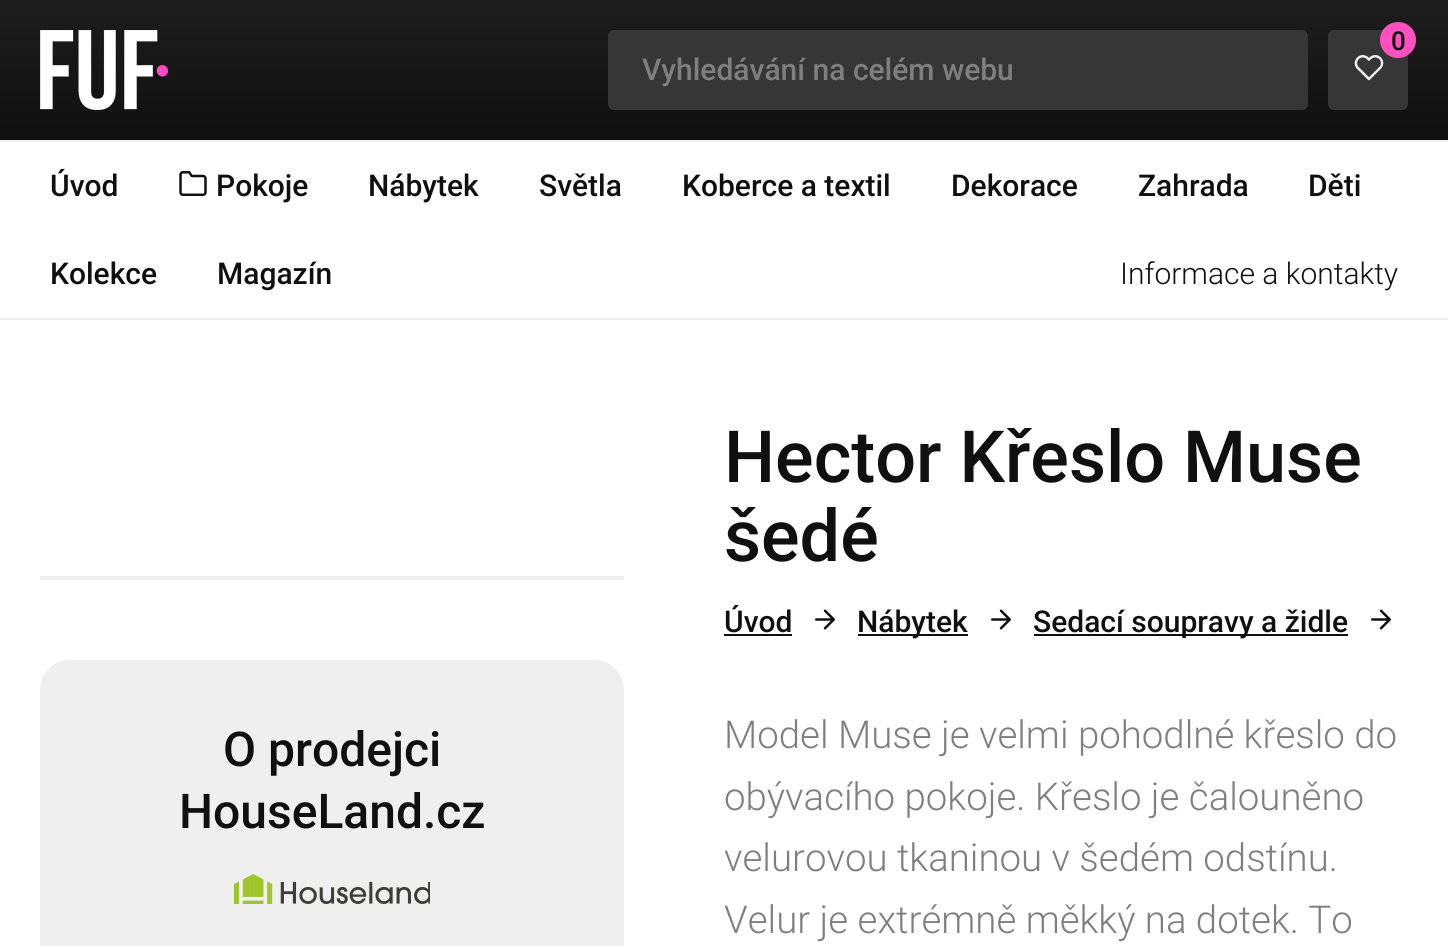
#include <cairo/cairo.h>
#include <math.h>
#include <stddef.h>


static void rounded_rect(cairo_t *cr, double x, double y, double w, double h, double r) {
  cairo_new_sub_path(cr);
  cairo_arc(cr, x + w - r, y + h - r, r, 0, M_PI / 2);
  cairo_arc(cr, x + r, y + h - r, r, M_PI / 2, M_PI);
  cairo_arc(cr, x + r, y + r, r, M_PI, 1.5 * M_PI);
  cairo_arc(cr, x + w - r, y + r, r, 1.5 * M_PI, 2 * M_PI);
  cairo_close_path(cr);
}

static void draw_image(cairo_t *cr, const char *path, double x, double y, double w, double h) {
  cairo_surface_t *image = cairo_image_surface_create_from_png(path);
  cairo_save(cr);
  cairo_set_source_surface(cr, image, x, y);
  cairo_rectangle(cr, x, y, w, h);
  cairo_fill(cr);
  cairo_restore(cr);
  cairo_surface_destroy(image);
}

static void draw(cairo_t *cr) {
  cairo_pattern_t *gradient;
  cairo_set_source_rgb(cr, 1, 1, 1);
  cairo_paint(cr);
  gradient = cairo_pattern_create_linear(0, 140, 0, 0);
  cairo_pattern_add_color_stop_rgba(gradient, 0, 16 / 255.0, 16 / 255.0, 16 / 255.0, 1);
  cairo_pattern_add_color_stop_rgba(gradient, 1, 29 / 255.0, 29 / 255.0, 29 / 255.0, 1);
  cairo_set_source(cr, gradient);
  cairo_pattern_destroy(gradient);
  cairo_rectangle(cr, 0, 0, 1448, 140);
  cairo_fill(cr);
  cairo_set_source_rgb(cr, 238 / 255.0, 238 / 255.0, 238 / 255.0);
  cairo_rectangle(cr, 0, 140, 1448, 2);
  cairo_fill(cr);
  draw_image(cr, "images/1.png", 40, 30, 128, 80);
  cairo_set_source_rgb(cr, 54 / 255.0, 54 / 255.0, 54 / 255.0);
  rounded_rect(cr, 1329, 31, 78, 78, 5);
  cairo_fill_preserve(cr);
  cairo_stroke(cr);
  draw_image(cr, "images/2.png", 1354, 55, 30, 26);
  cairo_set_source_rgb(cr, 1, 80 / 255.0, 192 / 255.0);
  cairo_arc(cr, 1398, 40, 18, 0, 2 * M_PI);
  cairo_fill(cr);
  cairo_set_source_rgb(cr, 54 / 255.0, 54 / 255.0, 54 / 255.0);
  rounded_rect(cr, 610, 32, 696, 76, 4);
  cairo_fill_preserve(cr);
  cairo_set_line_width(cr, 4);
  cairo_stroke(cr);
  cairo_set_source_rgb(cr, 238 / 255.0, 238 / 255.0, 238 / 255.0);
  cairo_rectangle(cr, 0, 318, 1448, 2);
  cairo_fill(cr);
  draw_image(cr, "images/3.png", 179, 171, 28, 25);
  cairo_rectangle(cr, 40, 576, 584, 4);
  cairo_fill(cr);
  cairo_set_source_rgb(cr, 239 / 255.0, 239 / 255.0, 239 / 255.0);
  rounded_rect(cr, 40, 660, 584, 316, 30);
  cairo_fill(cr);
  draw_image(cr, "images/4.png", 234, 874, 196, 30);
  cairo_set_source_rgb(cr, 16 / 255.0, 16 / 255.0, 16 / 255.0);
  cairo_rectangle(cr, 724, 634, 68, 2);
  cairo_fill(cr);
  draw_image(cr, "images/5.png", 815, 609, 20, 21);
  cairo_rectangle(cr, 858, 634, 110, 2);
  cairo_fill(cr);
  draw_image(cr, "images/5.png", 991, 609, 20, 21);
  cairo_rectangle(cr, 1034, 634, 314, 2);
  cairo_fill(cr);
  draw_image(cr, "images/5.png", 1371, 609, 20, 21);
  cairo_select_font_face(cr, "Roboto Medium", CAIRO_FONT_SLANT_NORMAL, CAIRO_FONT_WEIGHT_NORMAL);
  cairo_set_font_size(cr, 26);
  cairo_move_to(cr, 1391, 50);
  cairo_show_text(cr, "0");
  cairo_set_font_size(cr, 30);
  cairo_set_source_rgb(cr, 127 / 255.0, 127 / 255.0, 127 / 255.0);
  cairo_move_to(cr, 642, 80);
  cairo_show_text(cr, "Vyhledávání na celém webu");
  cairo_set_source_rgb(cr, 16 / 255.0, 16 / 255.0, 16 / 255.0);
  cairo_move_to(cr, 50, 196);
  cairo_show_text(cr, "Úvod");
  cairo_move_to(cr, 216, 196);
  cairo_show_text(cr, "Pokoje");
  cairo_move_to(cr, 368, 196);
  cairo_show_text(cr, "Nábytek");
  cairo_move_to(cr, 539, 196);
  cairo_show_text(cr, "Světla");
  cairo_move_to(cr, 682, 196);
  cairo_show_text(cr, "Koberce a textil");
  cairo_move_to(cr, 951, 196);
  cairo_show_text(cr, "Dekorace");
  cairo_move_to(cr, 1138, 196);
  cairo_show_text(cr, "Zahrada");
  cairo_move_to(cr, 1308, 196);
  cairo_show_text(cr, "Děti");
  cairo_move_to(cr, 50, 284);
  cairo_show_text(cr, "Kolekce");
  cairo_move_to(cr, 217, 284);
  cairo_show_text(cr, "Magazín");
  cairo_select_font_face(cr, "Roboto Light", CAIRO_FONT_SLANT_NORMAL, CAIRO_FONT_WEIGHT_NORMAL);
  cairo_move_to(cr, 1120, 284);
  cairo_show_text(cr, "Informace a kontakty");
  cairo_select_font_face(cr, "Roboto Medium", CAIRO_FONT_SLANT_NORMAL, CAIRO_FONT_WEIGHT_NORMAL);
  cairo_set_font_size(cr, 48);
  cairo_move_to(cr, 223, 766);
  cairo_show_text(cr, "O prodejci");
  cairo_move_to(cr, 179, 828);
  cairo_show_text(cr, "HouseLand.cz");
  cairo_set_font_size(cr, 72);
  cairo_move_to(cr, 724, 482);
  cairo_show_text(cr, "Hector Křeslo Muse");
  cairo_move_to(cr, 724, 561);
  cairo_show_text(cr, "šedé");
  cairo_set_font_size(cr, 30);
  cairo_move_to(cr, 724, 632);
  cairo_show_text(cr, "Úvod");
  cairo_move_to(cr, 857, 632);
  cairo_show_text(cr, "Nábytek");
  cairo_move_to(cr, 1033, 632);
  cairo_show_text(cr, "Sedací soupravy a židle");
  cairo_select_font_face(cr, "Roboto Light", CAIRO_FONT_SLANT_NORMAL, CAIRO_FONT_WEIGHT_NORMAL);
  cairo_set_font_size(cr, 38.4);
  cairo_set_source_rgb(cr, 127 / 255.0, 127 / 255.0, 127 / 255.0);
  cairo_move_to(cr, 724, 748);
  cairo_show_text(cr, "Model Muse je velmi pohodlné křeslo do");
  cairo_move_to(cr, 724, 810);
  cairo_show_text(cr, "obývacího pokoje. Křeslo je čalouněno");
  cairo_move_to(cr, 724, 871);
  cairo_show_text(cr, "velurovou tkaninou v šedém odstínu.");
  cairo_move_to(cr, 724, 933);
  cairo_show_text(cr, "Velur je extrémně měkký na dotek. To");
}

int main(void) {
  cairo_surface_t *surface = cairo_image_surface_create(CAIRO_FORMAT_RGB24, 1448, 946);
  cairo_t *cr = cairo_create(surface);
  cairo_font_options_t *options = cairo_font_options_create();
  cairo_font_options_set_hint_metrics(options, CAIRO_HINT_METRICS_OFF);
  cairo_font_options_set_hint_style(options, CAIRO_HINT_STYLE_NONE);
  cairo_set_font_options(cr, options);
  cairo_set_miter_limit(cr, 4);
  draw(cr);
  cairo_surface_write_to_png(surface, "out.png");
  cairo_font_options_destroy(options);
  cairo_destroy(cr);
  cairo_surface_destroy(surface);
  return 0;
}
